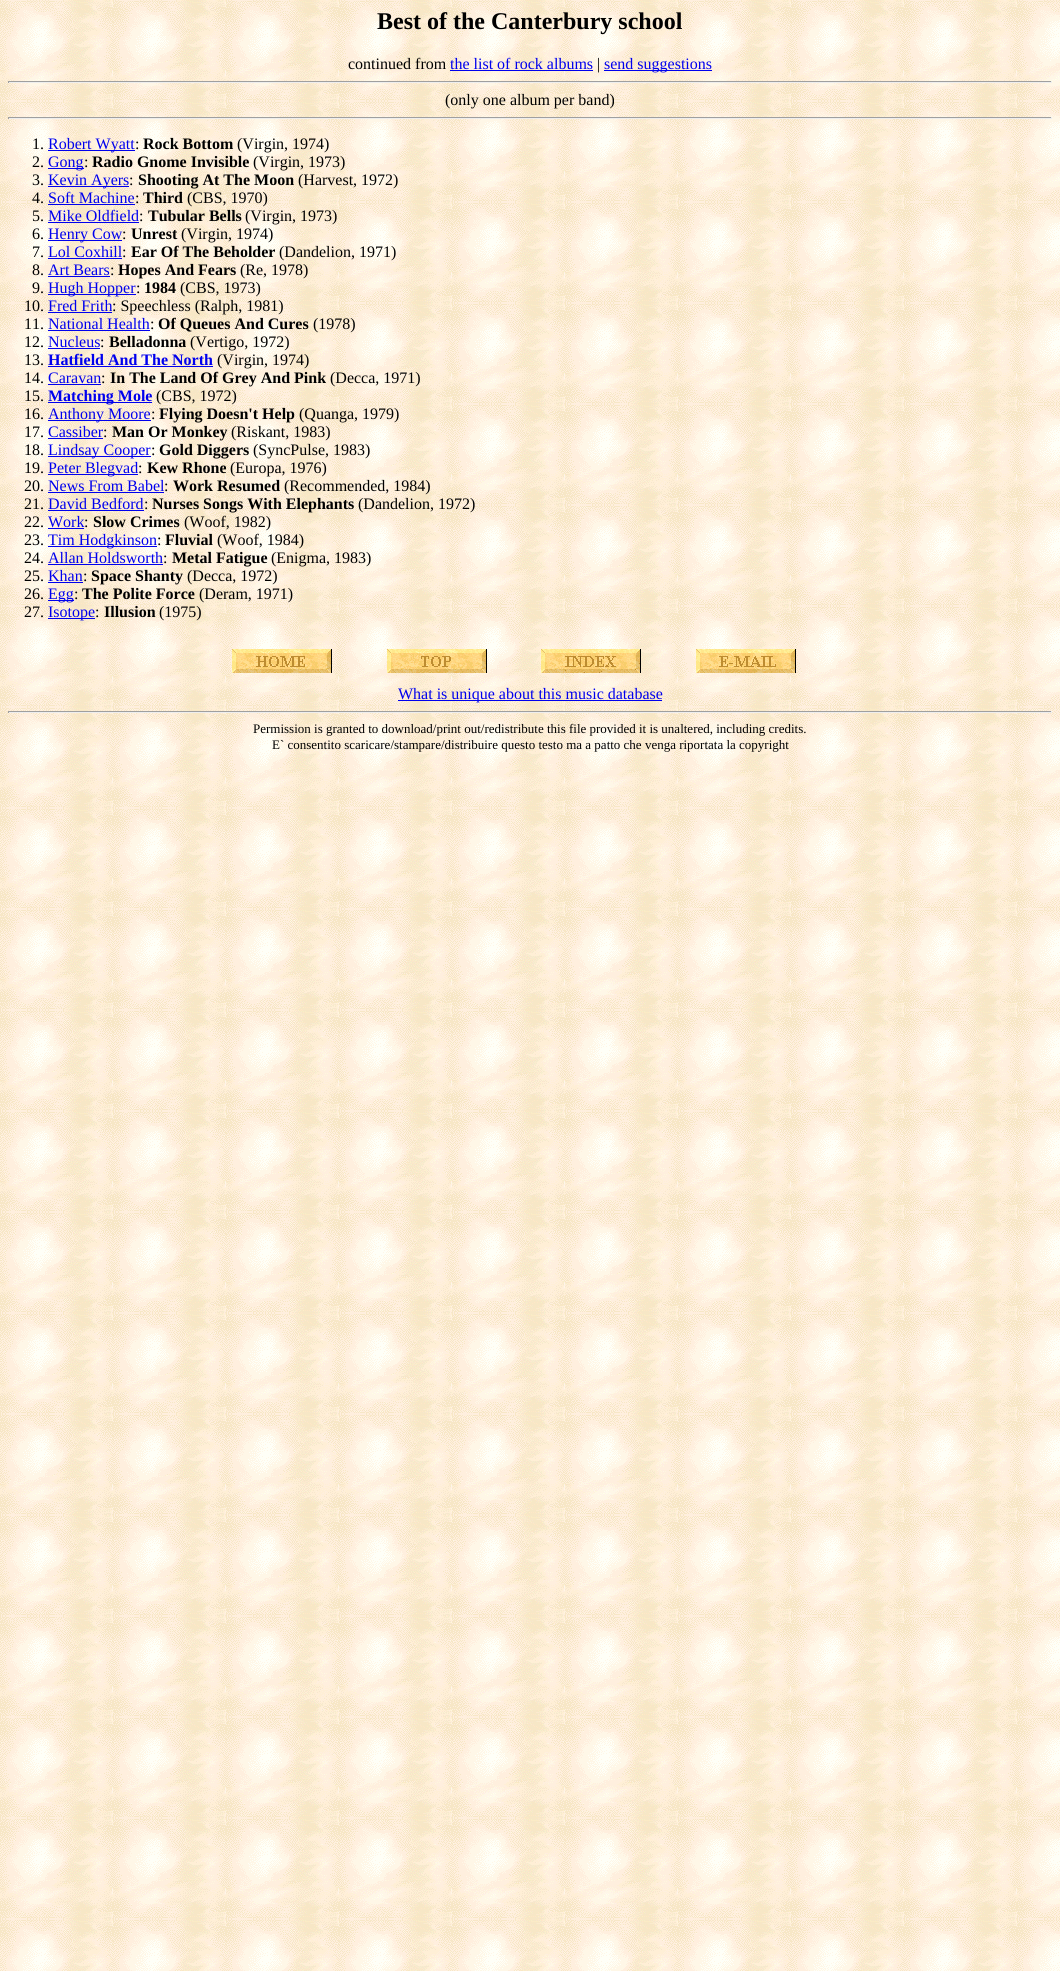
#include <cairo/cairo.h>
#include <math.h>
#include <stddef.h>


static void draw_image(cairo_t *cr, const char *path, double x, double y, double w, double h) {
  cairo_surface_t *image = cairo_image_surface_create_from_png(path);
  cairo_save(cr);
  cairo_set_source_surface(cr, image, x, y);
  cairo_rectangle(cr, x, y, w, h);
  cairo_fill(cr);
  cairo_restore(cr);
  cairo_surface_destroy(image);
}

static void draw(cairo_t *cr) {
  cairo_set_source_rgb(cr, 1, 1, 1);
  cairo_paint(cr);
  draw_image(cr, "images/1.png", 0, 0, 1060, 1971);
  cairo_set_source_rgb(cr, 0, 0, 238 / 255.0);
  cairo_rectangle(cr, 450, 70, 143, 1);
  cairo_fill(cr);
  cairo_rectangle(cr, 604, 70, 108, 1);
  cairo_fill(cr);
  cairo_set_source_rgb(cr, 159 / 255.0, 159 / 255.0, 159 / 255.0);
  cairo_rectangle(cr, 8, 81, 1044, 1);
  cairo_fill(cr);
  cairo_set_source_rgb(cr, 238 / 255.0, 238 / 255.0, 238 / 255.0);
  cairo_rectangle(cr, 1051, 81, 1, 2);
  cairo_fill(cr);
  cairo_rectangle(cr, 8, 82, 1044, 1);
  cairo_fill(cr);
  cairo_set_source_rgb(cr, 159 / 255.0, 159 / 255.0, 159 / 255.0);
  cairo_rectangle(cr, 8, 81, 1, 2);
  cairo_fill(cr);
  cairo_rectangle(cr, 8, 117, 1044, 1);
  cairo_fill(cr);
  cairo_set_source_rgb(cr, 238 / 255.0, 238 / 255.0, 238 / 255.0);
  cairo_rectangle(cr, 1051, 117, 1, 2);
  cairo_fill(cr);
  cairo_rectangle(cr, 8, 118, 1044, 1);
  cairo_fill(cr);
  cairo_set_source_rgb(cr, 159 / 255.0, 159 / 255.0, 159 / 255.0);
  cairo_rectangle(cr, 8, 117, 1, 2);
  cairo_fill(cr);
  cairo_set_source_rgb(cr, 0, 0, 238 / 255.0);
  cairo_rectangle(cr, 48, 150, 87, 1);
  cairo_fill(cr);
  cairo_rectangle(cr, 48, 168, 36, 1);
  cairo_fill(cr);
  cairo_rectangle(cr, 48, 186, 81, 1);
  cairo_fill(cr);
  cairo_rectangle(cr, 48, 204, 87, 1);
  cairo_fill(cr);
  cairo_rectangle(cr, 48, 222, 91, 1);
  cairo_fill(cr);
  cairo_rectangle(cr, 48, 240, 74, 1);
  cairo_fill(cr);
  cairo_rectangle(cr, 48, 258, 74, 1);
  cairo_fill(cr);
  cairo_rectangle(cr, 48, 276, 62, 1);
  cairo_fill(cr);
  cairo_rectangle(cr, 48, 294, 88, 1);
  cairo_fill(cr);
  cairo_rectangle(cr, 48, 312, 64, 1);
  cairo_fill(cr);
  cairo_rectangle(cr, 48, 330, 102, 1);
  cairo_fill(cr);
  cairo_rectangle(cr, 48, 348, 52, 1);
  cairo_fill(cr);
  cairo_rectangle(cr, 48, 366, 165, 1);
  cairo_fill(cr);
  cairo_rectangle(cr, 48, 384, 53, 1);
  cairo_fill(cr);
  cairo_rectangle(cr, 48, 402, 104, 1);
  cairo_fill(cr);
  cairo_rectangle(cr, 48, 420, 103, 1);
  cairo_fill(cr);
  cairo_rectangle(cr, 48, 438, 55, 1);
  cairo_fill(cr);
  cairo_rectangle(cr, 48, 456, 103, 1);
  cairo_fill(cr);
  cairo_rectangle(cr, 48, 474, 90, 1);
  cairo_fill(cr);
  cairo_rectangle(cr, 48, 492, 116, 1);
  cairo_fill(cr);
  cairo_rectangle(cr, 48, 510, 96, 1);
  cairo_fill(cr);
  cairo_rectangle(cr, 48, 528, 36, 1);
  cairo_fill(cr);
  cairo_rectangle(cr, 48, 546, 109, 1);
  cairo_fill(cr);
  cairo_rectangle(cr, 48, 564, 115, 1);
  cairo_fill(cr);
  cairo_rectangle(cr, 48, 582, 35, 1);
  cairo_fill(cr);
  cairo_rectangle(cr, 48, 600, 26, 1);
  cairo_fill(cr);
  cairo_rectangle(cr, 48, 618, 47, 1);
  cairo_fill(cr);
  draw_image(cr, "images/2.png", 232, 649, 100, 24);
  draw_image(cr, "images/3.png", 387, 649, 100, 24);
  draw_image(cr, "images/4.png", 541, 649, 100, 24);
  draw_image(cr, "images/5.png", 696, 649, 100, 24);
  cairo_rectangle(cr, 398, 700, 264, 1);
  cairo_fill(cr);
  cairo_set_source_rgb(cr, 159 / 255.0, 159 / 255.0, 159 / 255.0);
  cairo_rectangle(cr, 8, 711, 1044, 1);
  cairo_fill(cr);
  cairo_set_source_rgb(cr, 238 / 255.0, 238 / 255.0, 238 / 255.0);
  cairo_rectangle(cr, 1051, 711, 1, 2);
  cairo_fill(cr);
  cairo_rectangle(cr, 8, 712, 1044, 1);
  cairo_fill(cr);
  cairo_set_source_rgb(cr, 159 / 255.0, 159 / 255.0, 159 / 255.0);
  cairo_rectangle(cr, 8, 711, 1, 2);
  cairo_fill(cr);
  cairo_select_font_face(cr, "Liberation Serif", CAIRO_FONT_SLANT_NORMAL, CAIRO_FONT_WEIGHT_BOLD);
  cairo_set_font_size(cr, 24);
  cairo_set_source_rgb(cr, 0, 0, 0);
  cairo_move_to(cr, 377, 29);
  cairo_show_text(cr, "Best of the Canterbury school");
  cairo_select_font_face(cr, "Liberation Serif", CAIRO_FONT_SLANT_NORMAL, CAIRO_FONT_WEIGHT_NORMAL);
  cairo_set_font_size(cr, 16);
  cairo_move_to(cr, 348, 69);
  cairo_show_text(cr, "continued from");
  cairo_set_source_rgb(cr, 0, 0, 238 / 255.0);
  cairo_move_to(cr, 450, 69);
  cairo_show_text(cr, "the list of rock albums");
  cairo_set_source_rgb(cr, 0, 0, 0);
  cairo_move_to(cr, 597, 69);
  cairo_show_text(cr, "|");
  cairo_set_source_rgb(cr, 0, 0, 238 / 255.0);
  cairo_move_to(cr, 604, 69);
  cairo_show_text(cr, "send suggestions");
  cairo_set_source_rgb(cr, 0, 0, 0);
  cairo_move_to(cr, 445, 105);
  cairo_show_text(cr, "(only one album per band)");
  cairo_move_to(cr, 32, 149);
  cairo_show_text(cr, "1.");
  cairo_set_source_rgb(cr, 0, 0, 238 / 255.0);
  cairo_move_to(cr, 48, 149);
  cairo_show_text(cr, "Robert Wyatt");
  cairo_set_source_rgb(cr, 0, 0, 0);
  cairo_move_to(cr, 135, 149);
  cairo_show_text(cr, ":");
  cairo_select_font_face(cr, "Liberation Serif", CAIRO_FONT_SLANT_NORMAL, CAIRO_FONT_WEIGHT_BOLD);
  cairo_move_to(cr, 143, 149);
  cairo_show_text(cr, "Rock Bottom");
  cairo_select_font_face(cr, "Liberation Serif", CAIRO_FONT_SLANT_NORMAL, CAIRO_FONT_WEIGHT_NORMAL);
  cairo_move_to(cr, 237, 149);
  cairo_show_text(cr, "(Virgin, 1974)");
  cairo_move_to(cr, 32, 167);
  cairo_show_text(cr, "2.");
  cairo_set_source_rgb(cr, 0, 0, 238 / 255.0);
  cairo_move_to(cr, 48, 167);
  cairo_show_text(cr, "Gong");
  cairo_set_source_rgb(cr, 0, 0, 0);
  cairo_move_to(cr, 84, 167);
  cairo_show_text(cr, ":");
  cairo_select_font_face(cr, "Liberation Serif", CAIRO_FONT_SLANT_NORMAL, CAIRO_FONT_WEIGHT_BOLD);
  cairo_move_to(cr, 92, 167);
  cairo_show_text(cr, "Radio Gnome Invisible");
  cairo_select_font_face(cr, "Liberation Serif", CAIRO_FONT_SLANT_NORMAL, CAIRO_FONT_WEIGHT_NORMAL);
  cairo_move_to(cr, 253, 167);
  cairo_show_text(cr, "(Virgin, 1973)");
  cairo_move_to(cr, 32, 185);
  cairo_show_text(cr, "3.");
  cairo_set_source_rgb(cr, 0, 0, 238 / 255.0);
  cairo_move_to(cr, 48, 185);
  cairo_show_text(cr, "Kevin Ayers");
  cairo_set_source_rgb(cr, 0, 0, 0);
  cairo_move_to(cr, 129, 185);
  cairo_show_text(cr, ":");
  cairo_select_font_face(cr, "Liberation Serif", CAIRO_FONT_SLANT_NORMAL, CAIRO_FONT_WEIGHT_BOLD);
  cairo_move_to(cr, 138, 185);
  cairo_show_text(cr, "Shooting At The Moon");
  cairo_select_font_face(cr, "Liberation Serif", CAIRO_FONT_SLANT_NORMAL, CAIRO_FONT_WEIGHT_NORMAL);
  cairo_move_to(cr, 298, 185);
  cairo_show_text(cr, "(Harvest, 1972)");
  cairo_move_to(cr, 32, 203);
  cairo_show_text(cr, "4.");
  cairo_set_source_rgb(cr, 0, 0, 238 / 255.0);
  cairo_move_to(cr, 48, 203);
  cairo_show_text(cr, "Soft Machine");
  cairo_set_source_rgb(cr, 0, 0, 0);
  cairo_move_to(cr, 135, 203);
  cairo_show_text(cr, ":");
  cairo_select_font_face(cr, "Liberation Serif", CAIRO_FONT_SLANT_NORMAL, CAIRO_FONT_WEIGHT_BOLD);
  cairo_move_to(cr, 143, 203);
  cairo_show_text(cr, "Third");
  cairo_select_font_face(cr, "Liberation Serif", CAIRO_FONT_SLANT_NORMAL, CAIRO_FONT_WEIGHT_NORMAL);
  cairo_move_to(cr, 187, 203);
  cairo_show_text(cr, "(CBS, 1970)");
  cairo_move_to(cr, 32, 221);
  cairo_show_text(cr, "5.");
  cairo_set_source_rgb(cr, 0, 0, 238 / 255.0);
  cairo_move_to(cr, 48, 221);
  cairo_show_text(cr, "Mike Oldfield");
  cairo_set_source_rgb(cr, 0, 0, 0);
  cairo_move_to(cr, 139, 221);
  cairo_show_text(cr, ":");
  cairo_select_font_face(cr, "Liberation Serif", CAIRO_FONT_SLANT_NORMAL, CAIRO_FONT_WEIGHT_BOLD);
  cairo_move_to(cr, 148, 221);
  cairo_show_text(cr, "Tubular Bells");
  cairo_select_font_face(cr, "Liberation Serif", CAIRO_FONT_SLANT_NORMAL, CAIRO_FONT_WEIGHT_NORMAL);
  cairo_move_to(cr, 245, 221);
  cairo_show_text(cr, "(Virgin, 1973)");
  cairo_move_to(cr, 32, 239);
  cairo_show_text(cr, "6.");
  cairo_set_source_rgb(cr, 0, 0, 238 / 255.0);
  cairo_move_to(cr, 48, 239);
  cairo_show_text(cr, "Henry Cow");
  cairo_set_source_rgb(cr, 0, 0, 0);
  cairo_move_to(cr, 122, 239);
  cairo_show_text(cr, ":");
  cairo_select_font_face(cr, "Liberation Serif", CAIRO_FONT_SLANT_NORMAL, CAIRO_FONT_WEIGHT_BOLD);
  cairo_move_to(cr, 131, 239);
  cairo_show_text(cr, "Unrest");
  cairo_select_font_face(cr, "Liberation Serif", CAIRO_FONT_SLANT_NORMAL, CAIRO_FONT_WEIGHT_NORMAL);
  cairo_move_to(cr, 181, 239);
  cairo_show_text(cr, "(Virgin, 1974)");
  cairo_move_to(cr, 32, 257);
  cairo_show_text(cr, "7.");
  cairo_set_source_rgb(cr, 0, 0, 238 / 255.0);
  cairo_move_to(cr, 48, 257);
  cairo_show_text(cr, "Lol Coxhill");
  cairo_set_source_rgb(cr, 0, 0, 0);
  cairo_move_to(cr, 122, 257);
  cairo_show_text(cr, ":");
  cairo_select_font_face(cr, "Liberation Serif", CAIRO_FONT_SLANT_NORMAL, CAIRO_FONT_WEIGHT_BOLD);
  cairo_move_to(cr, 131, 257);
  cairo_show_text(cr, "Ear Of The Beholder");
  cairo_select_font_face(cr, "Liberation Serif", CAIRO_FONT_SLANT_NORMAL, CAIRO_FONT_WEIGHT_NORMAL);
  cairo_move_to(cr, 279, 257);
  cairo_show_text(cr, "(Dandelion, 1971)");
  cairo_move_to(cr, 32, 275);
  cairo_show_text(cr, "8.");
  cairo_set_source_rgb(cr, 0, 0, 238 / 255.0);
  cairo_move_to(cr, 48, 275);
  cairo_show_text(cr, "Art Bears");
  cairo_set_source_rgb(cr, 0, 0, 0);
  cairo_move_to(cr, 110, 275);
  cairo_show_text(cr, ":");
  cairo_select_font_face(cr, "Liberation Serif", CAIRO_FONT_SLANT_NORMAL, CAIRO_FONT_WEIGHT_BOLD);
  cairo_move_to(cr, 118, 275);
  cairo_show_text(cr, "Hopes And Fears");
  cairo_select_font_face(cr, "Liberation Serif", CAIRO_FONT_SLANT_NORMAL, CAIRO_FONT_WEIGHT_NORMAL);
  cairo_move_to(cr, 240, 275);
  cairo_show_text(cr, "(Re, 1978)");
  cairo_move_to(cr, 32, 293);
  cairo_show_text(cr, "9.");
  cairo_set_source_rgb(cr, 0, 0, 238 / 255.0);
  cairo_move_to(cr, 48, 293);
  cairo_show_text(cr, "Hugh Hopper");
  cairo_set_source_rgb(cr, 0, 0, 0);
  cairo_move_to(cr, 136, 293);
  cairo_show_text(cr, ":");
  cairo_select_font_face(cr, "Liberation Serif", CAIRO_FONT_SLANT_NORMAL, CAIRO_FONT_WEIGHT_BOLD);
  cairo_move_to(cr, 144, 293);
  cairo_show_text(cr, "1984");
  cairo_select_font_face(cr, "Liberation Serif", CAIRO_FONT_SLANT_NORMAL, CAIRO_FONT_WEIGHT_NORMAL);
  cairo_move_to(cr, 180, 293);
  cairo_show_text(cr, "(CBS, 1973)");
  cairo_move_to(cr, 24, 311);
  cairo_show_text(cr, "10.");
  cairo_set_source_rgb(cr, 0, 0, 238 / 255.0);
  cairo_move_to(cr, 48, 311);
  cairo_show_text(cr, "Fred Frith");
  cairo_set_source_rgb(cr, 0, 0, 0);
  cairo_move_to(cr, 112, 311);
  cairo_show_text(cr, ": Speechless (Ralph, 1981)");
  cairo_move_to(cr, 24, 329);
  cairo_show_text(cr, "11.");
  cairo_set_source_rgb(cr, 0, 0, 238 / 255.0);
  cairo_move_to(cr, 48, 329);
  cairo_show_text(cr, "National Health");
  cairo_set_source_rgb(cr, 0, 0, 0);
  cairo_move_to(cr, 150, 329);
  cairo_show_text(cr, ":");
  cairo_select_font_face(cr, "Liberation Serif", CAIRO_FONT_SLANT_NORMAL, CAIRO_FONT_WEIGHT_BOLD);
  cairo_move_to(cr, 158, 329);
  cairo_show_text(cr, "Of Queues And Cures");
  cairo_select_font_face(cr, "Liberation Serif", CAIRO_FONT_SLANT_NORMAL, CAIRO_FONT_WEIGHT_NORMAL);
  cairo_move_to(cr, 313, 329);
  cairo_show_text(cr, "(1978)");
  cairo_move_to(cr, 24, 347);
  cairo_show_text(cr, "12.");
  cairo_set_source_rgb(cr, 0, 0, 238 / 255.0);
  cairo_move_to(cr, 48, 347);
  cairo_show_text(cr, "Nucleus");
  cairo_set_source_rgb(cr, 0, 0, 0);
  cairo_move_to(cr, 100, 347);
  cairo_show_text(cr, ":");
  cairo_select_font_face(cr, "Liberation Serif", CAIRO_FONT_SLANT_NORMAL, CAIRO_FONT_WEIGHT_BOLD);
  cairo_move_to(cr, 109, 347);
  cairo_show_text(cr, "Belladonna");
  cairo_select_font_face(cr, "Liberation Serif", CAIRO_FONT_SLANT_NORMAL, CAIRO_FONT_WEIGHT_NORMAL);
  cairo_move_to(cr, 190, 347);
  cairo_show_text(cr, "(Vertigo, 1972)");
  cairo_move_to(cr, 24, 365);
  cairo_show_text(cr, "13.");
  cairo_select_font_face(cr, "Liberation Serif", CAIRO_FONT_SLANT_NORMAL, CAIRO_FONT_WEIGHT_BOLD);
  cairo_set_source_rgb(cr, 0, 0, 238 / 255.0);
  cairo_move_to(cr, 48, 365);
  cairo_show_text(cr, "Hatfield And The North");
  cairo_select_font_face(cr, "Liberation Serif", CAIRO_FONT_SLANT_NORMAL, CAIRO_FONT_WEIGHT_NORMAL);
  cairo_set_source_rgb(cr, 0, 0, 0);
  cairo_move_to(cr, 217, 365);
  cairo_show_text(cr, "(Virgin, 1974)");
  cairo_move_to(cr, 24, 383);
  cairo_show_text(cr, "14.");
  cairo_set_source_rgb(cr, 0, 0, 238 / 255.0);
  cairo_move_to(cr, 48, 383);
  cairo_show_text(cr, "Caravan");
  cairo_set_source_rgb(cr, 0, 0, 0);
  cairo_move_to(cr, 101, 383);
  cairo_show_text(cr, ":");
  cairo_select_font_face(cr, "Liberation Serif", CAIRO_FONT_SLANT_NORMAL, CAIRO_FONT_WEIGHT_BOLD);
  cairo_move_to(cr, 110, 383);
  cairo_show_text(cr, "In The Land Of Grey And Pink");
  cairo_select_font_face(cr, "Liberation Serif", CAIRO_FONT_SLANT_NORMAL, CAIRO_FONT_WEIGHT_NORMAL);
  cairo_move_to(cr, 330, 383);
  cairo_show_text(cr, "(Decca, 1971)");
  cairo_move_to(cr, 24, 401);
  cairo_show_text(cr, "15.");
  cairo_select_font_face(cr, "Liberation Serif", CAIRO_FONT_SLANT_NORMAL, CAIRO_FONT_WEIGHT_BOLD);
  cairo_set_source_rgb(cr, 0, 0, 238 / 255.0);
  cairo_move_to(cr, 48, 401);
  cairo_show_text(cr, "Matching Mole");
  cairo_select_font_face(cr, "Liberation Serif", CAIRO_FONT_SLANT_NORMAL, CAIRO_FONT_WEIGHT_NORMAL);
  cairo_set_source_rgb(cr, 0, 0, 0);
  cairo_move_to(cr, 156, 401);
  cairo_show_text(cr, "(CBS, 1972)");
  cairo_move_to(cr, 24, 419);
  cairo_show_text(cr, "16.");
  cairo_set_source_rgb(cr, 0, 0, 238 / 255.0);
  cairo_move_to(cr, 48, 419);
  cairo_show_text(cr, "Anthony Moore");
  cairo_set_source_rgb(cr, 0, 0, 0);
  cairo_move_to(cr, 151, 419);
  cairo_show_text(cr, ":");
  cairo_select_font_face(cr, "Liberation Serif", CAIRO_FONT_SLANT_NORMAL, CAIRO_FONT_WEIGHT_BOLD);
  cairo_move_to(cr, 159, 419);
  cairo_show_text(cr, "Flying Doesn't Help");
  cairo_select_font_face(cr, "Liberation Serif", CAIRO_FONT_SLANT_NORMAL, CAIRO_FONT_WEIGHT_NORMAL);
  cairo_move_to(cr, 299, 419);
  cairo_show_text(cr, "(Quanga, 1979)");
  cairo_move_to(cr, 24, 437);
  cairo_show_text(cr, "17.");
  cairo_set_source_rgb(cr, 0, 0, 238 / 255.0);
  cairo_move_to(cr, 48, 437);
  cairo_show_text(cr, "Cassiber");
  cairo_set_source_rgb(cr, 0, 0, 0);
  cairo_move_to(cr, 103, 437);
  cairo_show_text(cr, ":");
  cairo_select_font_face(cr, "Liberation Serif", CAIRO_FONT_SLANT_NORMAL, CAIRO_FONT_WEIGHT_BOLD);
  cairo_move_to(cr, 112, 437);
  cairo_show_text(cr, "Man Or Monkey");
  cairo_select_font_face(cr, "Liberation Serif", CAIRO_FONT_SLANT_NORMAL, CAIRO_FONT_WEIGHT_NORMAL);
  cairo_move_to(cr, 231, 437);
  cairo_show_text(cr, "(Riskant, 1983)");
  cairo_move_to(cr, 24, 455);
  cairo_show_text(cr, "18.");
  cairo_set_source_rgb(cr, 0, 0, 238 / 255.0);
  cairo_move_to(cr, 48, 455);
  cairo_show_text(cr, "Lindsay Cooper");
  cairo_set_source_rgb(cr, 0, 0, 0);
  cairo_move_to(cr, 151, 455);
  cairo_show_text(cr, ":");
  cairo_select_font_face(cr, "Liberation Serif", CAIRO_FONT_SLANT_NORMAL, CAIRO_FONT_WEIGHT_BOLD);
  cairo_move_to(cr, 159, 455);
  cairo_show_text(cr, "Gold Diggers");
  cairo_select_font_face(cr, "Liberation Serif", CAIRO_FONT_SLANT_NORMAL, CAIRO_FONT_WEIGHT_NORMAL);
  cairo_move_to(cr, 253, 455);
  cairo_show_text(cr, "(SyncPulse, 1983)");
  cairo_move_to(cr, 24, 473);
  cairo_show_text(cr, "19.");
  cairo_set_source_rgb(cr, 0, 0, 238 / 255.0);
  cairo_move_to(cr, 48, 473);
  cairo_show_text(cr, "Peter Blegvad");
  cairo_set_source_rgb(cr, 0, 0, 0);
  cairo_move_to(cr, 138, 473);
  cairo_show_text(cr, ":");
  cairo_select_font_face(cr, "Liberation Serif", CAIRO_FONT_SLANT_NORMAL, CAIRO_FONT_WEIGHT_BOLD);
  cairo_move_to(cr, 147, 473);
  cairo_show_text(cr, "Kew Rhone");
  cairo_select_font_face(cr, "Liberation Serif", CAIRO_FONT_SLANT_NORMAL, CAIRO_FONT_WEIGHT_NORMAL);
  cairo_move_to(cr, 230, 473);
  cairo_show_text(cr, "(Europa, 1976)");
  cairo_move_to(cr, 24, 491);
  cairo_show_text(cr, "20.");
  cairo_set_source_rgb(cr, 0, 0, 238 / 255.0);
  cairo_move_to(cr, 48, 491);
  cairo_show_text(cr, "News From Babel");
  cairo_set_source_rgb(cr, 0, 0, 0);
  cairo_move_to(cr, 164, 491);
  cairo_show_text(cr, ":");
  cairo_select_font_face(cr, "Liberation Serif", CAIRO_FONT_SLANT_NORMAL, CAIRO_FONT_WEIGHT_BOLD);
  cairo_move_to(cr, 173, 491);
  cairo_show_text(cr, "Work Resumed");
  cairo_select_font_face(cr, "Liberation Serif", CAIRO_FONT_SLANT_NORMAL, CAIRO_FONT_WEIGHT_NORMAL);
  cairo_move_to(cr, 284, 491);
  cairo_show_text(cr, "(Recommended, 1984)");
  cairo_move_to(cr, 24, 509);
  cairo_show_text(cr, "21.");
  cairo_set_source_rgb(cr, 0, 0, 238 / 255.0);
  cairo_move_to(cr, 48, 509);
  cairo_show_text(cr, "David Bedford");
  cairo_set_source_rgb(cr, 0, 0, 0);
  cairo_move_to(cr, 144, 509);
  cairo_show_text(cr, ":");
  cairo_select_font_face(cr, "Liberation Serif", CAIRO_FONT_SLANT_NORMAL, CAIRO_FONT_WEIGHT_BOLD);
  cairo_move_to(cr, 152, 509);
  cairo_show_text(cr, "Nurses Songs With Elephants");
  cairo_select_font_face(cr, "Liberation Serif", CAIRO_FONT_SLANT_NORMAL, CAIRO_FONT_WEIGHT_NORMAL);
  cairo_move_to(cr, 358, 509);
  cairo_show_text(cr, "(Dandelion, 1972)");
  cairo_move_to(cr, 24, 527);
  cairo_show_text(cr, "22.");
  cairo_set_source_rgb(cr, 0, 0, 238 / 255.0);
  cairo_move_to(cr, 48, 527);
  cairo_show_text(cr, "Work");
  cairo_set_source_rgb(cr, 0, 0, 0);
  cairo_move_to(cr, 84, 527);
  cairo_show_text(cr, ":");
  cairo_select_font_face(cr, "Liberation Serif", CAIRO_FONT_SLANT_NORMAL, CAIRO_FONT_WEIGHT_BOLD);
  cairo_move_to(cr, 93, 527);
  cairo_show_text(cr, "Slow Crimes");
  cairo_select_font_face(cr, "Liberation Serif", CAIRO_FONT_SLANT_NORMAL, CAIRO_FONT_WEIGHT_NORMAL);
  cairo_move_to(cr, 184, 527);
  cairo_show_text(cr, "(Woof, 1982)");
  cairo_move_to(cr, 24, 545);
  cairo_show_text(cr, "23.");
  cairo_set_source_rgb(cr, 0, 0, 238 / 255.0);
  cairo_move_to(cr, 48, 545);
  cairo_show_text(cr, "Tim Hodgkinson");
  cairo_set_source_rgb(cr, 0, 0, 0);
  cairo_move_to(cr, 157, 545);
  cairo_show_text(cr, ":");
  cairo_select_font_face(cr, "Liberation Serif", CAIRO_FONT_SLANT_NORMAL, CAIRO_FONT_WEIGHT_BOLD);
  cairo_move_to(cr, 165, 545);
  cairo_show_text(cr, "Fluvial");
  cairo_select_font_face(cr, "Liberation Serif", CAIRO_FONT_SLANT_NORMAL, CAIRO_FONT_WEIGHT_NORMAL);
  cairo_move_to(cr, 217, 545);
  cairo_show_text(cr, "(Woof, 1984)");
  cairo_move_to(cr, 24, 563);
  cairo_show_text(cr, "24.");
  cairo_set_source_rgb(cr, 0, 0, 238 / 255.0);
  cairo_move_to(cr, 48, 563);
  cairo_show_text(cr, "Allan Holdsworth");
  cairo_set_source_rgb(cr, 0, 0, 0);
  cairo_move_to(cr, 163, 563);
  cairo_show_text(cr, ":");
  cairo_select_font_face(cr, "Liberation Serif", CAIRO_FONT_SLANT_NORMAL, CAIRO_FONT_WEIGHT_BOLD);
  cairo_move_to(cr, 172, 563);
  cairo_show_text(cr, "Metal Fatigue");
  cairo_select_font_face(cr, "Liberation Serif", CAIRO_FONT_SLANT_NORMAL, CAIRO_FONT_WEIGHT_NORMAL);
  cairo_move_to(cr, 271, 563);
  cairo_show_text(cr, "(Enigma, 1983)");
  cairo_move_to(cr, 24, 581);
  cairo_show_text(cr, "25.");
  cairo_set_source_rgb(cr, 0, 0, 238 / 255.0);
  cairo_move_to(cr, 48, 581);
  cairo_show_text(cr, "Khan");
  cairo_set_source_rgb(cr, 0, 0, 0);
  cairo_move_to(cr, 83, 581);
  cairo_show_text(cr, ":");
  cairo_select_font_face(cr, "Liberation Serif", CAIRO_FONT_SLANT_NORMAL, CAIRO_FONT_WEIGHT_BOLD);
  cairo_move_to(cr, 91, 581);
  cairo_show_text(cr, "Space Shanty");
  cairo_select_font_face(cr, "Liberation Serif", CAIRO_FONT_SLANT_NORMAL, CAIRO_FONT_WEIGHT_NORMAL);
  cairo_move_to(cr, 187, 581);
  cairo_show_text(cr, "(Decca, 1972)");
  cairo_move_to(cr, 24, 599);
  cairo_show_text(cr, "26.");
  cairo_set_source_rgb(cr, 0, 0, 238 / 255.0);
  cairo_move_to(cr, 48, 599);
  cairo_show_text(cr, "Egg");
  cairo_set_source_rgb(cr, 0, 0, 0);
  cairo_move_to(cr, 74, 599);
  cairo_show_text(cr, ":");
  cairo_select_font_face(cr, "Liberation Serif", CAIRO_FONT_SLANT_NORMAL, CAIRO_FONT_WEIGHT_BOLD);
  cairo_move_to(cr, 82, 599);
  cairo_show_text(cr, "The Polite Force");
  cairo_select_font_face(cr, "Liberation Serif", CAIRO_FONT_SLANT_NORMAL, CAIRO_FONT_WEIGHT_NORMAL);
  cairo_move_to(cr, 199, 599);
  cairo_show_text(cr, "(Deram, 1971)");
  cairo_move_to(cr, 24, 617);
  cairo_show_text(cr, "27.");
  cairo_set_source_rgb(cr, 0, 0, 238 / 255.0);
  cairo_move_to(cr, 48, 617);
  cairo_show_text(cr, "Isotope");
  cairo_set_source_rgb(cr, 0, 0, 0);
  cairo_move_to(cr, 95, 617);
  cairo_show_text(cr, ":");
  cairo_select_font_face(cr, "Liberation Serif", CAIRO_FONT_SLANT_NORMAL, CAIRO_FONT_WEIGHT_BOLD);
  cairo_move_to(cr, 104, 617);
  cairo_show_text(cr, "Illusion");
  cairo_select_font_face(cr, "Liberation Serif", CAIRO_FONT_SLANT_NORMAL, CAIRO_FONT_WEIGHT_NORMAL);
  cairo_move_to(cr, 159, 617);
  cairo_show_text(cr, "(1975)");
  cairo_set_source_rgb(cr, 0, 0, 238 / 255.0);
  cairo_move_to(cr, 398, 699);
  cairo_show_text(cr, "What is unique about this music database");
  cairo_set_font_size(cr, 13);
  cairo_set_source_rgb(cr, 0, 0, 0);
  cairo_move_to(cr, 253, 733);
  cairo_show_text(cr, "Permission is granted to download/print out/redistribute this file provided it is unaltered, including credits.");
  cairo_move_to(cr, 272, 749);
  cairo_show_text(cr, "E` consentito scaricare/stampare/distribuire questo testo ma a patto che venga riportata la copyright");
}

int main(void) {
  cairo_surface_t *surface = cairo_image_surface_create(CAIRO_FORMAT_RGB24, 1060, 1971);
  cairo_t *cr = cairo_create(surface);
  cairo_font_options_t *options = cairo_font_options_create();
  cairo_font_options_set_hint_metrics(options, CAIRO_HINT_METRICS_OFF);
  cairo_font_options_set_hint_style(options, CAIRO_HINT_STYLE_NONE);
  cairo_set_font_options(cr, options);
  cairo_set_miter_limit(cr, 4);
  draw(cr);
  cairo_surface_write_to_png(surface, "out.png");
  cairo_font_options_destroy(options);
  cairo_destroy(cr);
  cairo_surface_destroy(surface);
  return 0;
}
